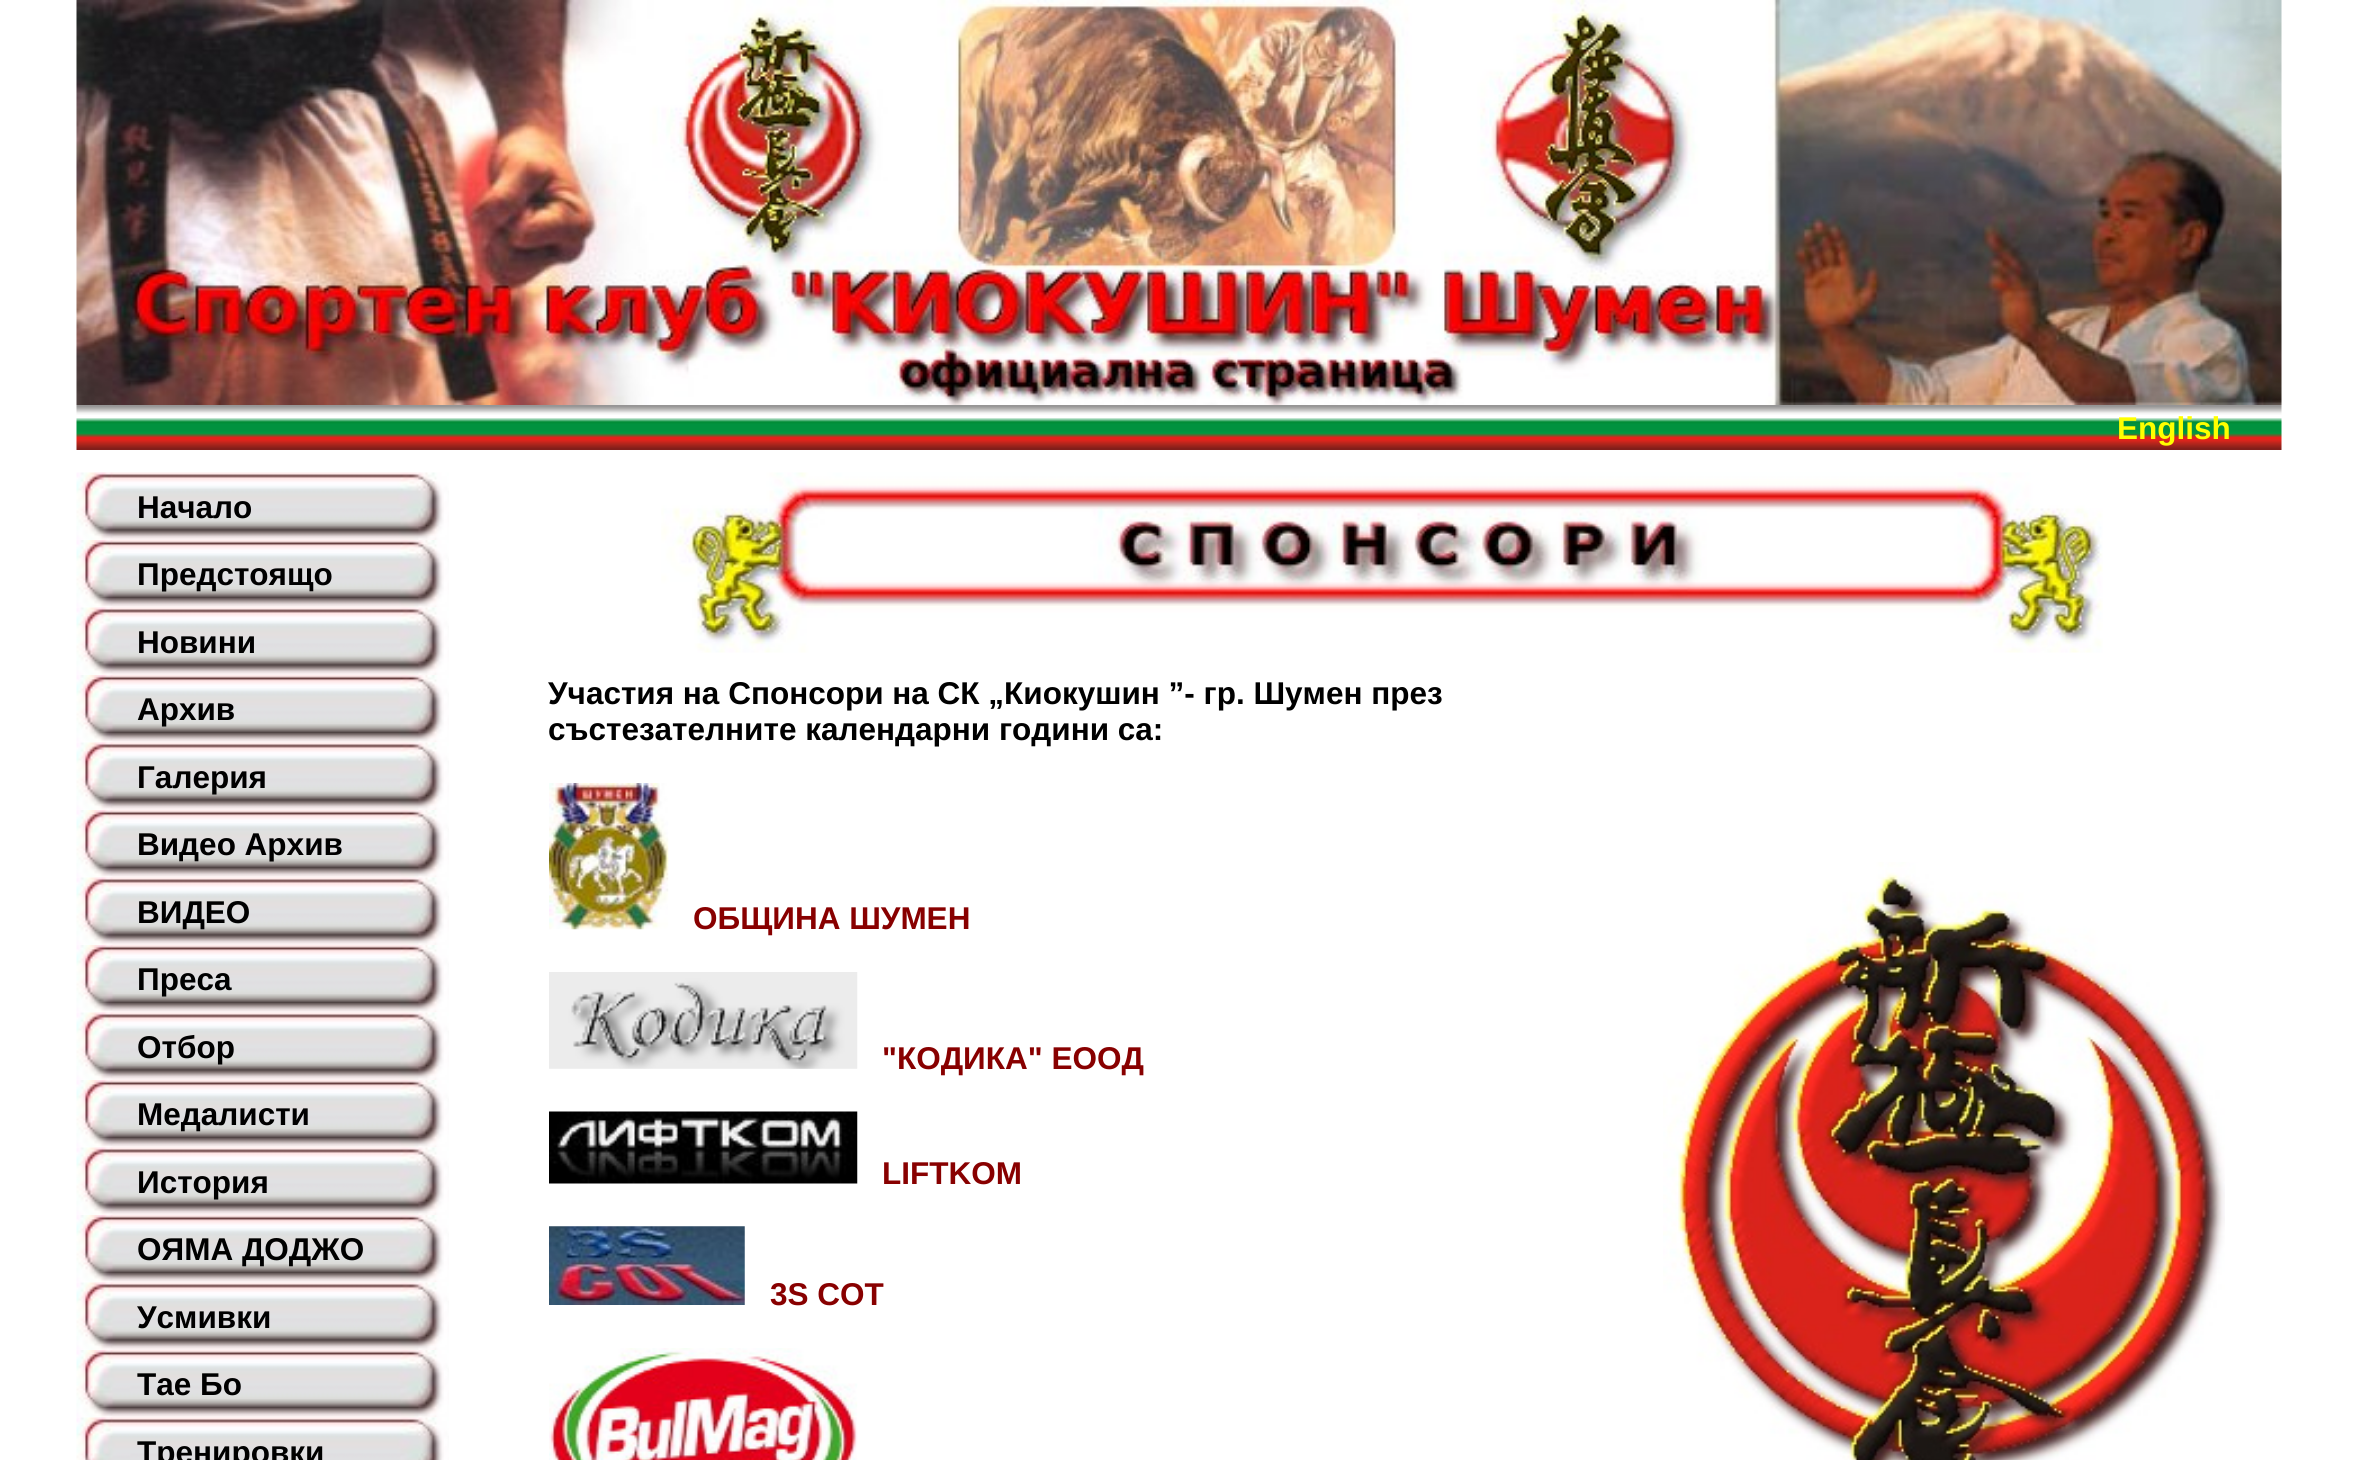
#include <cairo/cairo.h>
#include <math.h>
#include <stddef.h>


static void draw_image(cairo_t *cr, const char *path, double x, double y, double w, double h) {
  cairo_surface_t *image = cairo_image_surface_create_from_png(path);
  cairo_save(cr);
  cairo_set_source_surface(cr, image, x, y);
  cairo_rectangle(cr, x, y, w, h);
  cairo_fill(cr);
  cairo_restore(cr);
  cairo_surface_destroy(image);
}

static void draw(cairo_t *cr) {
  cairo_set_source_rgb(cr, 1, 1, 1);
  cairo_paint(cr);
  draw_image(cr, "images/1.png", 76, 0, 2206, 405);
  draw_image(cr, "images/2.png", 76, 405, 2206, 45);
  draw_image(cr, "images/3.png", 76, 472, 373, 68);
  draw_image(cr, "images/4.png", 76, 540, 373, 68);
  draw_image(cr, "images/5.png", 76, 607, 373, 68);
  draw_image(cr, "images/4.png", 76, 675, 373, 68);
  draw_image(cr, "images/5.png", 76, 742, 373, 68);
  draw_image(cr, "images/6.png", 76, 810, 373, 68);
  draw_image(cr, "images/5.png", 76, 877, 373, 68);
  draw_image(cr, "images/4.png", 76, 945, 373, 68);
  draw_image(cr, "images/5.png", 76, 1012, 373, 68);
  draw_image(cr, "images/4.png", 76, 1080, 373, 68);
  draw_image(cr, "images/7.png", 76, 1147, 373, 68);
  draw_image(cr, "images/4.png", 76, 1215, 373, 68);
  draw_image(cr, "images/8.png", 76, 1282, 373, 68);
  draw_image(cr, "images/4.png", 76, 1350, 373, 68);
  draw_image(cr, "images/9.png", 76, 1417, 373, 43);
  draw_image(cr, "images/10.png", 661, 472, 1442, 181);
  draw_image(cr, "images/11.png", 549, 783, 120, 147);
  draw_image(cr, "images/12.png", 549, 972, 309, 97);
  draw_image(cr, "images/13.png", 549, 1111, 309, 73);
  draw_image(cr, "images/14.png", 549, 1226, 196, 79);
  draw_image(cr, "images/15.png", 549, 1348, 309, 112);
  draw_image(cr, "images/16.png", 1663, 862, 562, 598);
  cairo_select_font_face(cr, "Liberation Sans", CAIRO_FONT_SLANT_NORMAL, CAIRO_FONT_WEIGHT_BOLD);
  cairo_set_font_size(cr, 31.5);
  cairo_set_source_rgb(cr, 1, 1, 0);
  cairo_move_to(cr, 2117, 439);
  cairo_show_text(cr, "English");
  cairo_set_source_rgb(cr, 0, 0, 0);
  cairo_move_to(cr, 137, 518);
  cairo_show_text(cr, "Начало");
  cairo_move_to(cr, 137, 585);
  cairo_show_text(cr, "Предстоящо");
  cairo_move_to(cr, 137, 653);
  cairo_show_text(cr, "Новини");
  cairo_move_to(cr, 137, 720);
  cairo_show_text(cr, "Архив");
  cairo_move_to(cr, 137, 788);
  cairo_show_text(cr, "Галерия");
  cairo_move_to(cr, 137, 855);
  cairo_show_text(cr, "Видео Архив");
  cairo_move_to(cr, 137, 923);
  cairo_show_text(cr, "ВИДЕО");
  cairo_move_to(cr, 137, 990);
  cairo_show_text(cr, "Преса");
  cairo_move_to(cr, 137, 1058);
  cairo_show_text(cr, "Отбор");
  cairo_move_to(cr, 137, 1125);
  cairo_show_text(cr, "Медалисти");
  cairo_move_to(cr, 137, 1193);
  cairo_show_text(cr, "История");
  cairo_move_to(cr, 137, 1260);
  cairo_show_text(cr, "ОЯМА ДОДЖО");
  cairo_move_to(cr, 137, 1328);
  cairo_show_text(cr, "Усмивки");
  cairo_move_to(cr, 137, 1395);
  cairo_show_text(cr, "Тае Бо");
  cairo_move_to(cr, 137, 1463);
  cairo_show_text(cr, "Тренировки");
  cairo_move_to(cr, 548, 704);
  cairo_show_text(cr, "Участия на Спонсори на СК „Киокушин ”- гр. Шумен през");
  cairo_move_to(cr, 548, 740);
  cairo_show_text(cr, "състезателните календарни години са:");
  cairo_set_source_rgb(cr, 136 / 255.0, 0, 0);
  cairo_move_to(cr, 693, 929);
  cairo_show_text(cr, "ОБЩИНА ШУМЕН");
  cairo_move_to(cr, 882, 1069);
  cairo_show_text(cr, "\"КОДИКА\" ЕООД");
  cairo_move_to(cr, 882, 1184);
  cairo_show_text(cr, "LIFTKOM");
  cairo_move_to(cr, 770, 1305);
  cairo_show_text(cr, "3S СОТ");
}

int main(void) {
  cairo_surface_t *surface = cairo_image_surface_create(CAIRO_FORMAT_RGB24, 2355, 1460);
  cairo_t *cr = cairo_create(surface);
  cairo_font_options_t *options = cairo_font_options_create();
  cairo_font_options_set_hint_metrics(options, CAIRO_HINT_METRICS_OFF);
  cairo_font_options_set_hint_style(options, CAIRO_HINT_STYLE_NONE);
  cairo_set_font_options(cr, options);
  cairo_set_miter_limit(cr, 4);
  draw(cr);
  cairo_surface_write_to_png(surface, "out.png");
  cairo_font_options_destroy(options);
  cairo_destroy(cr);
  cairo_surface_destroy(surface);
  return 0;
}
